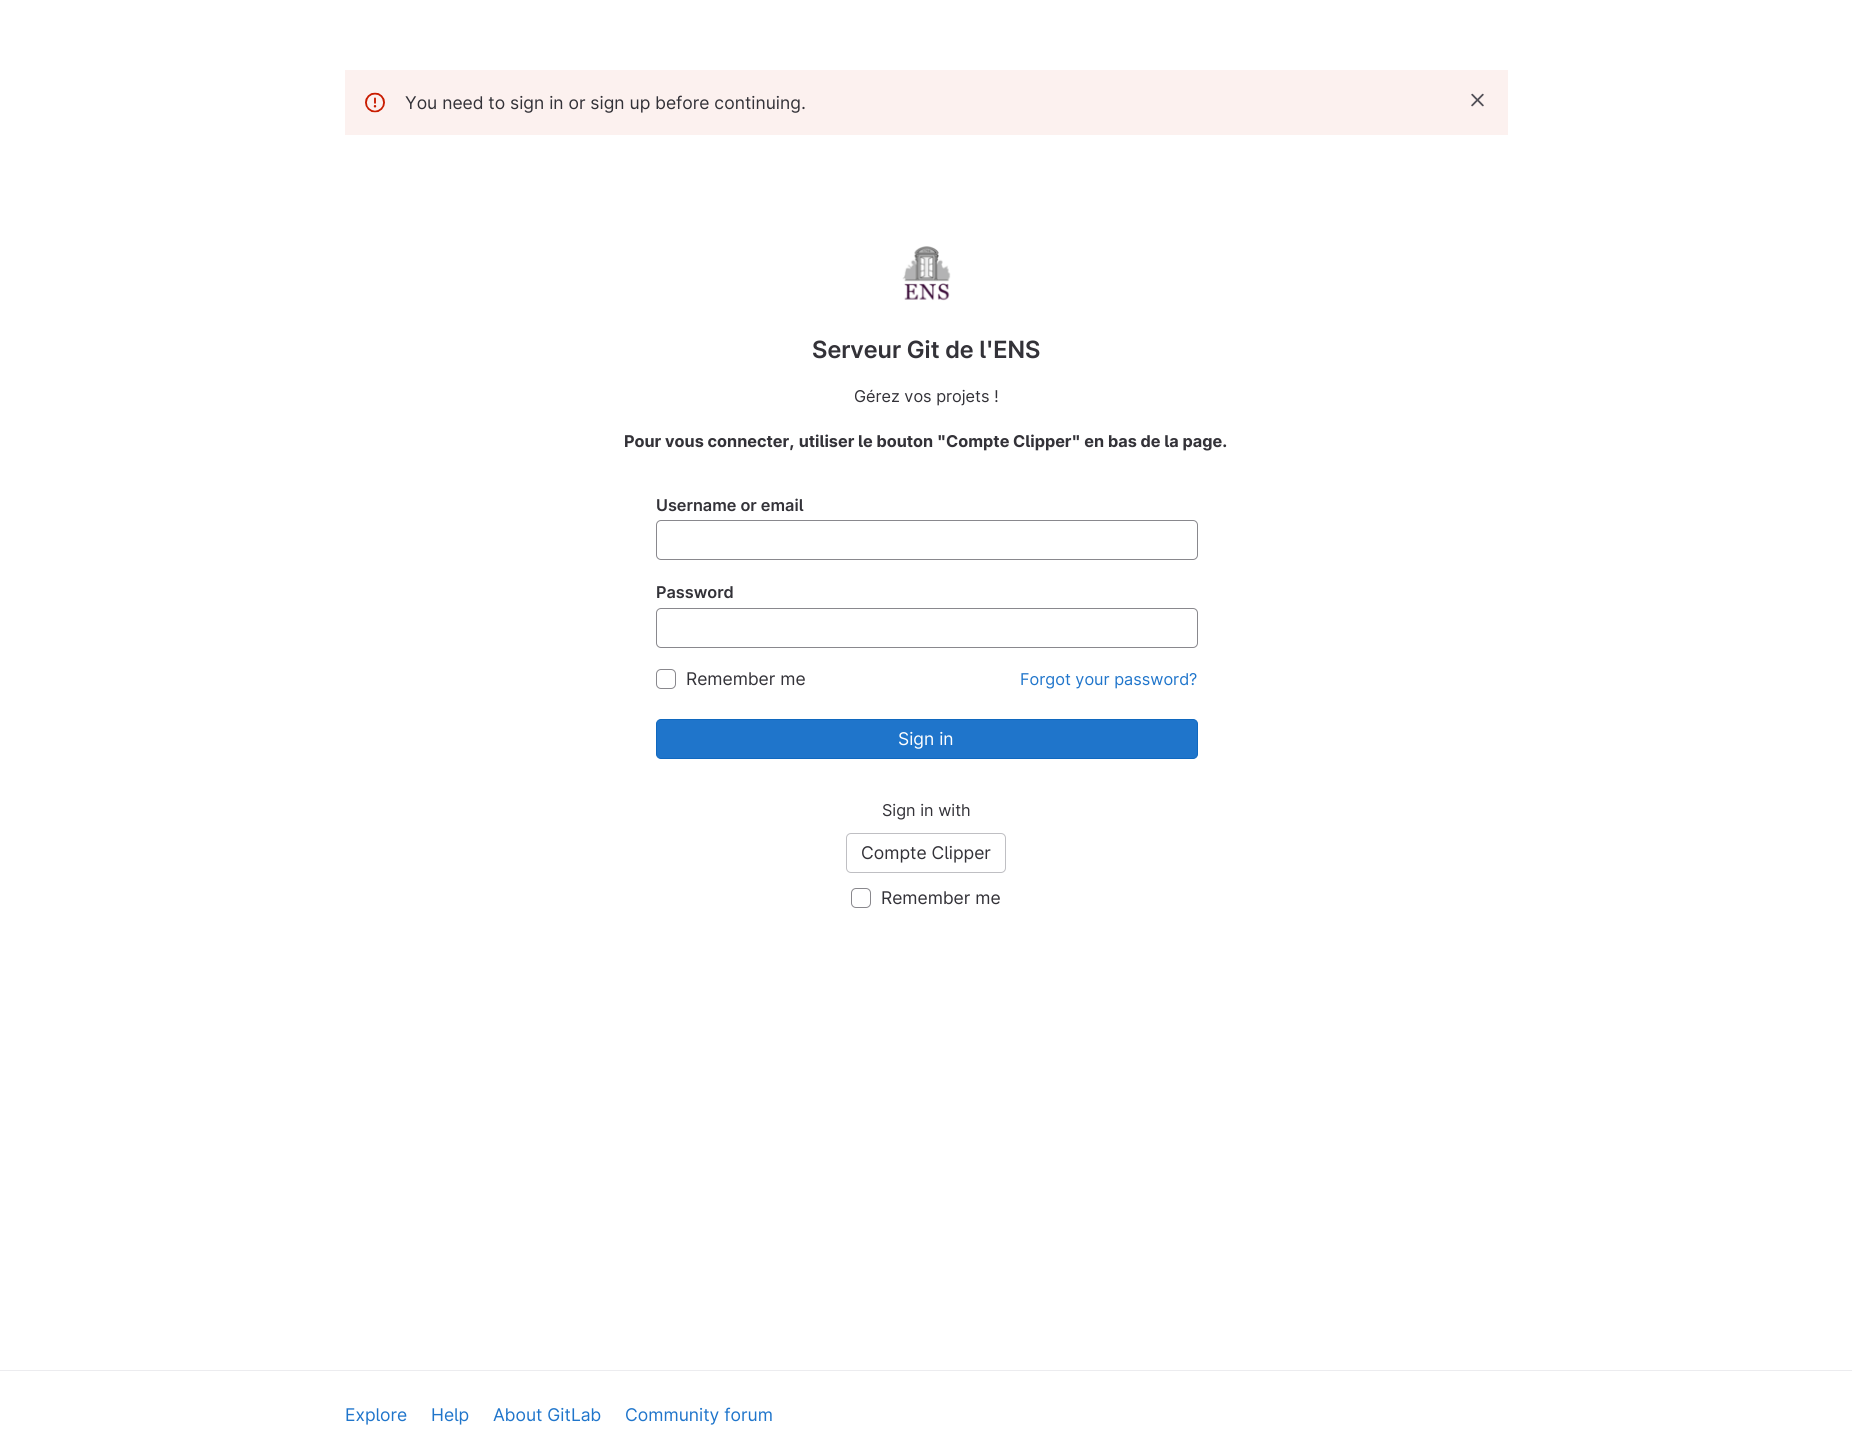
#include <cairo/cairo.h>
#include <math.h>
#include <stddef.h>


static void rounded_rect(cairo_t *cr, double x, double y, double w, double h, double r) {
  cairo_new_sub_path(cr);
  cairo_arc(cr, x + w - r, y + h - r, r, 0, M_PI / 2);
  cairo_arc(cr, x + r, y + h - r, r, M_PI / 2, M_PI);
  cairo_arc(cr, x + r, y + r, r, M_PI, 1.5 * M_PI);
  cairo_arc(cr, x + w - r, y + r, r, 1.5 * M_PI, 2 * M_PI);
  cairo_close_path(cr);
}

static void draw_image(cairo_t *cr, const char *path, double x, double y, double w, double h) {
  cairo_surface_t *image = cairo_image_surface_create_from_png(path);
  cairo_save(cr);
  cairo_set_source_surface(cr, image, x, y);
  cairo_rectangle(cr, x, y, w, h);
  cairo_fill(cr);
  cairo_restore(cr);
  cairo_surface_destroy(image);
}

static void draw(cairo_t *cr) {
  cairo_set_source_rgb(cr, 1, 1, 1);
  cairo_paint(cr);
  cairo_set_source_rgb(cr, 252 / 255.0, 241 / 255.0, 239 / 255.0);
  cairo_rectangle(cr, 345, 70, 1163, 65);
  cairo_fill(cr);
  draw_image(cr, "images/1.png", 365, 92, 20, 21);
  draw_image(cr, "images/2.png", 1471, 93, 13, 14);
  draw_image(cr, "images/3.png", 902, 246, 49, 55);
  rounded_rect(cr, 656.5, 520.5, 541, 39, 4.5);
  cairo_set_source_rgb(cr, 137 / 255.0, 136 / 255.0, 141 / 255.0);
  cairo_set_line_width(cr, 1);
  cairo_stroke(cr);
  rounded_rect(cr, 656.5, 608.5, 541, 39, 4.5);
  cairo_stroke(cr);
  rounded_rect(cr, 656.5, 669.5, 19, 19, 4.5);
  cairo_stroke(cr);
  cairo_set_source_rgb(cr, 31 / 255.0, 117 / 255.0, 203 / 255.0);
  rounded_rect(cr, 656.5, 719.5, 541, 39, 4.5);
  cairo_fill_preserve(cr);
  cairo_set_source_rgb(cr, 16 / 255.0, 104 / 255.0, 191 / 255.0);
  cairo_stroke(cr);
  rounded_rect(cr, 846.5, 833.5, 159, 39, 4.5);
  cairo_set_source_rgb(cr, 191 / 255.0, 191 / 255.0, 195 / 255.0);
  cairo_stroke(cr);
  rounded_rect(cr, 851.5, 888.5, 19, 19, 4.5);
  cairo_set_source_rgb(cr, 137 / 255.0, 136 / 255.0, 141 / 255.0);
  cairo_stroke(cr);
  cairo_set_source_rgb(cr, 236 / 255.0, 236 / 255.0, 239 / 255.0);
  cairo_rectangle(cr, 0, 1370, 1852, 1);
  cairo_fill(cr);
  cairo_select_font_face(cr, "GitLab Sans", CAIRO_FONT_SLANT_NORMAL, CAIRO_FONT_WEIGHT_NORMAL);
  cairo_set_font_size(cr, 17.5);
  cairo_set_source_rgb(cr, 51 / 255.0, 50 / 255.0, 56 / 255.0);
  cairo_move_to(cr, 405, 109);
  cairo_show_text(cr, "You need to sign in or sign up before continuing.");
  cairo_select_font_face(cr, "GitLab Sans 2 SemiBold", CAIRO_FONT_SLANT_NORMAL, CAIRO_FONT_WEIGHT_NORMAL);
  cairo_set_font_size(cr, 23.75);
  cairo_move_to(cr, 812, 358);
  cairo_show_text(cr, "Serveur Git de l'ENS");
  cairo_select_font_face(cr, "GitLab Sans", CAIRO_FONT_SLANT_NORMAL, CAIRO_FONT_WEIGHT_NORMAL);
  cairo_set_font_size(cr, 16.25);
  cairo_move_to(cr, 854, 402);
  cairo_show_text(cr, "Gérez vos projets !");
  cairo_select_font_face(cr, "GitLab Sans", CAIRO_FONT_SLANT_NORMAL, CAIRO_FONT_WEIGHT_BOLD);
  cairo_move_to(cr, 624, 447);
  cairo_show_text(cr, "Pour vous connecter, utiliser le bouton \"Compte Clipper\" en bas de la page.");
  cairo_select_font_face(cr, "GitLab Sans SemiBold", CAIRO_FONT_SLANT_NORMAL, CAIRO_FONT_WEIGHT_NORMAL);
  cairo_move_to(cr, 656, 511);
  cairo_show_text(cr, "Username or email");
  cairo_move_to(cr, 656, 598);
  cairo_show_text(cr, "Password");
  cairo_select_font_face(cr, "GitLab Sans", CAIRO_FONT_SLANT_NORMAL, CAIRO_FONT_WEIGHT_NORMAL);
  cairo_set_font_size(cr, 17.5);
  cairo_move_to(cr, 686, 685);
  cairo_show_text(cr, "Remember me");
  cairo_set_font_size(cr, 16.25);
  cairo_set_source_rgb(cr, 31 / 255.0, 117 / 255.0, 203 / 255.0);
  cairo_move_to(cr, 1020, 685);
  cairo_show_text(cr, "Forgot your password?");
  cairo_set_font_size(cr, 17.5);
  cairo_set_source_rgb(cr, 1, 1, 1);
  cairo_move_to(cr, 898, 745);
  cairo_show_text(cr, "Sign in");
  cairo_set_font_size(cr, 16.25);
  cairo_set_source_rgb(cr, 51 / 255.0, 50 / 255.0, 56 / 255.0);
  cairo_move_to(cr, 882, 816);
  cairo_show_text(cr, "Sign in with");
  cairo_set_font_size(cr, 17.5);
  cairo_move_to(cr, 861, 859);
  cairo_show_text(cr, "Compte Clipper");
  cairo_move_to(cr, 881, 904);
  cairo_show_text(cr, "Remember me");
  cairo_set_source_rgb(cr, 31 / 255.0, 117 / 255.0, 203 / 255.0);
  cairo_move_to(cr, 345, 1421);
  cairo_show_text(cr, "Explore");
  cairo_move_to(cr, 431, 1421);
  cairo_show_text(cr, "Help");
  cairo_move_to(cr, 493, 1421);
  cairo_show_text(cr, "About GitLab");
  cairo_move_to(cr, 625, 1421);
  cairo_show_text(cr, "Community forum");
}

int main(void) {
  cairo_surface_t *surface = cairo_image_surface_create(CAIRO_FORMAT_RGB24, 1852, 1451);
  cairo_t *cr = cairo_create(surface);
  cairo_font_options_t *options = cairo_font_options_create();
  cairo_font_options_set_hint_metrics(options, CAIRO_HINT_METRICS_OFF);
  cairo_font_options_set_hint_style(options, CAIRO_HINT_STYLE_NONE);
  cairo_set_font_options(cr, options);
  cairo_set_miter_limit(cr, 4);
  draw(cr);
  cairo_surface_write_to_png(surface, "out.png");
  cairo_font_options_destroy(options);
  cairo_destroy(cr);
  cairo_surface_destroy(surface);
  return 0;
}
